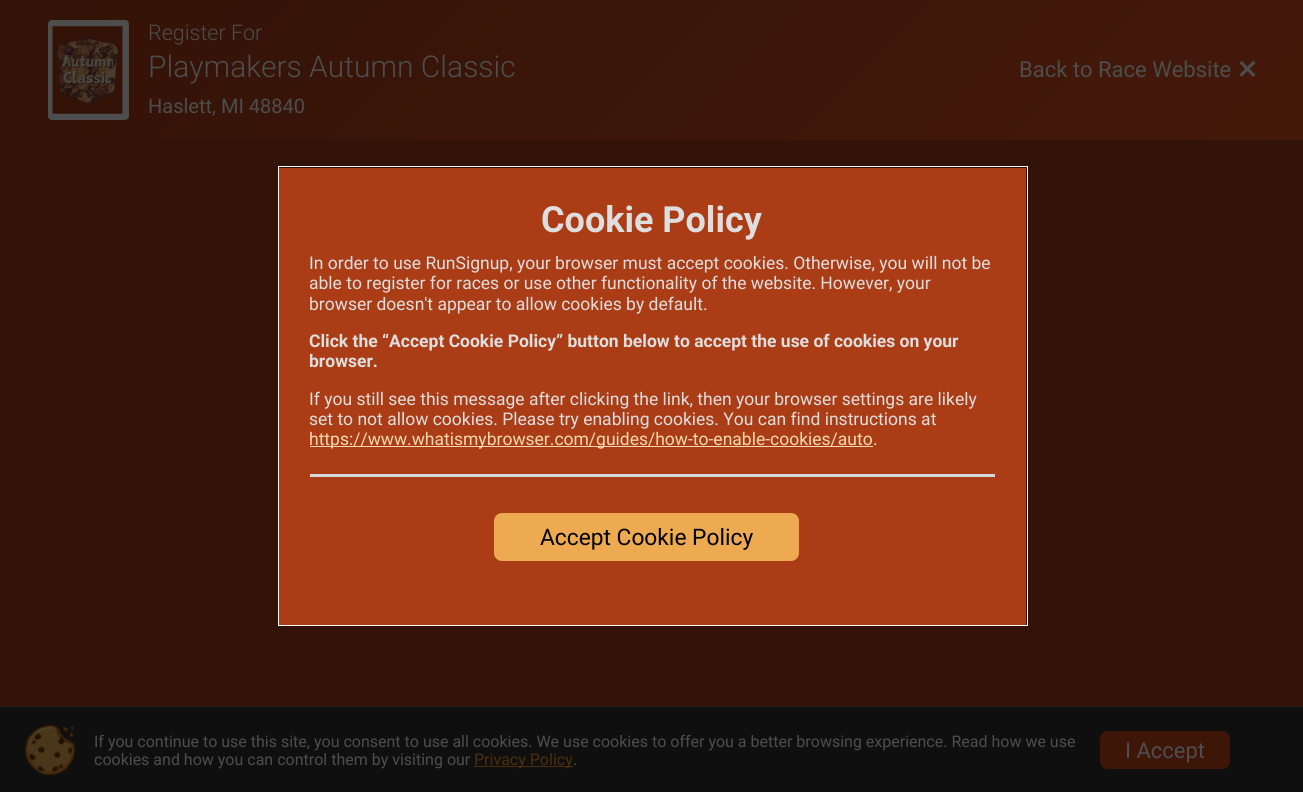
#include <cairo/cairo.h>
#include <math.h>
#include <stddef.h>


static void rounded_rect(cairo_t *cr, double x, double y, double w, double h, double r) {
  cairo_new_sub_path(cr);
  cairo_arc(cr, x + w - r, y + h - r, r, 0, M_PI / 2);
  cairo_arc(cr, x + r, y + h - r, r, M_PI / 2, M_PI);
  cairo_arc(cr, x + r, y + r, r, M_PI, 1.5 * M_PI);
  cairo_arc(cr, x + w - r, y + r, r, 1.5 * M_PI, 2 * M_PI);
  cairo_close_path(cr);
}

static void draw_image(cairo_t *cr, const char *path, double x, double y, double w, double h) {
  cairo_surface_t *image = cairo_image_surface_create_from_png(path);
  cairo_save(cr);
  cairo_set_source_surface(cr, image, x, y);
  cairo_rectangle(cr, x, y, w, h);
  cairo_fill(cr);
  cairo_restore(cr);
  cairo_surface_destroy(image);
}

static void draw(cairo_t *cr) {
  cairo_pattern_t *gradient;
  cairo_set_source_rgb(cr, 51 / 255.0, 18 / 255.0, 7 / 255.0);
  cairo_paint(cr);
  gradient = cairo_pattern_create_linear(1013, 431, 291, -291);
  cairo_pattern_add_color_stop_rgba(gradient, 0, 68 / 255.0, 25 / 255.0, 10 / 255.0, 1);
  cairo_pattern_add_color_stop_rgba(gradient, 1, 51 / 255.0, 18 / 255.0, 7 / 255.0, 1);
  cairo_set_source(cr, gradient);
  cairo_pattern_destroy(gradient);
  cairo_rectangle(cr, 73, 0, 1230, 140);
  cairo_fill(cr);
  cairo_set_source_rgb(cr, 77 / 255.0, 77 / 255.0, 77 / 255.0);
  rounded_rect(cr, 48, 20, 81, 100, 4);
  cairo_fill(cr);
  draw_image(cr, "images/1.png", 52, 26, 71, 88);
  draw_image(cr, "images/2.png", 1239, 60, 17, 17);
  cairo_rectangle(cr, 278.5, 166.5, 749, 459);
  cairo_set_source_rgb(cr, 1, 1, 1);
  cairo_set_line_width(cr, 1);
  cairo_stroke(cr);
  cairo_set_source_rgb(cr, 170 / 255.0, 61 / 255.0, 22 / 255.0);
  cairo_rectangle(cr, 279, 168, 747, 457);
  cairo_fill(cr);
  cairo_set_source_rgb(cr, 247 / 255.0, 217 / 255.0, 176 / 255.0);
  cairo_rectangle(cr, 310, 446, 563, 1);
  cairo_fill(cr);
  cairo_set_source_rgb(cr, 211 / 255.0, 219 / 255.0, 223 / 255.0);
  cairo_rectangle(cr, 310, 474, 685, 3);
  cairo_fill(cr);
  cairo_set_source_rgb(cr, 237 / 255.0, 170 / 255.0, 81 / 255.0);
  rounded_rect(cr, 494, 513, 305, 48, 8);
  cairo_fill(cr);
  cairo_set_source_rgb(cr, 15 / 255.0, 15 / 255.0, 15 / 255.0);
  cairo_rectangle(cr, 0, 707, 1303, 85);
  cairo_fill(cr);
  cairo_set_source_rgb(cr, 31 / 255.0, 31 / 255.0, 31 / 255.0);
  cairo_rectangle(cr, 0, 706, 1303, 1);
  cairo_fill(cr);
  draw_image(cr, "images/3.png", 25, 725, 50, 51);
  cairo_set_source_rgb(cr, 76 / 255.0, 46 / 255.0, 11 / 255.0);
  cairo_rectangle(cr, 474, 766, 99, 1);
  cairo_fill(cr);
  cairo_set_source_rgb(cr, 62 / 255.0, 22 / 255.0, 8 / 255.0);
  rounded_rect(cr, 1100, 731, 130, 38, 8);
  cairo_fill(cr);
  cairo_select_font_face(cr, "Roboto Light", CAIRO_FONT_SLANT_NORMAL, CAIRO_FONT_WEIGHT_NORMAL);
  cairo_set_font_size(cr, 21.5);
  cairo_set_source_rgb(cr, 77 / 255.0, 77 / 255.0, 77 / 255.0);
  cairo_move_to(cr, 148, 40);
  cairo_show_text(cr, "Register For");
  cairo_set_font_size(cr, 30);
  cairo_move_to(cr, 148, 77);
  cairo_show_text(cr, "Playmakers Autumn Classic");
  cairo_select_font_face(cr, "Roboto", CAIRO_FONT_SLANT_NORMAL, CAIRO_FONT_WEIGHT_NORMAL);
  cairo_set_font_size(cr, 20);
  cairo_move_to(cr, 148, 113);
  cairo_show_text(cr, "Haslett, MI 48840");
  cairo_set_font_size(cr, 22);
  cairo_move_to(cr, 1019, 77);
  cairo_show_text(cr, "Back to Race Website");
  cairo_select_font_face(cr, "Roboto", CAIRO_FONT_SLANT_NORMAL, CAIRO_FONT_WEIGHT_BOLD);
  cairo_set_font_size(cr, 36);
  cairo_set_source_rgb(cr, 222 / 255.0, 222 / 255.0, 222 / 255.0);
  cairo_move_to(cr, 541, 232);
  cairo_show_text(cr, "Cookie Policy");
  cairo_select_font_face(cr, "Roboto", CAIRO_FONT_SLANT_NORMAL, CAIRO_FONT_WEIGHT_NORMAL);
  cairo_set_font_size(cr, 17.5);
  cairo_move_to(cr, 309, 269);
  cairo_show_text(cr, "In order to use RunSignup, your browser must accept cookies. Otherwise, you will not be");
  cairo_move_to(cr, 309, 289);
  cairo_show_text(cr, "able to register for races or use other functionality of the website. However, your");
  cairo_move_to(cr, 309, 310);
  cairo_show_text(cr, "browser doesn't appear to allow cookies by default.");
  cairo_select_font_face(cr, "Roboto", CAIRO_FONT_SLANT_NORMAL, CAIRO_FONT_WEIGHT_BOLD);
  cairo_move_to(cr, 309, 347);
  cairo_show_text(cr, "Click the “Accept Cookie Policy” button below to accept the use of cookies on your");
  cairo_move_to(cr, 309, 367);
  cairo_show_text(cr, "browser.");
  cairo_select_font_face(cr, "Roboto", CAIRO_FONT_SLANT_NORMAL, CAIRO_FONT_WEIGHT_NORMAL);
  cairo_move_to(cr, 309, 405);
  cairo_show_text(cr, "If you still see this message after clicking the link, then your browser settings are likely");
  cairo_move_to(cr, 309, 425);
  cairo_show_text(cr, "set to not allow cookies. Please try enabling cookies. You can find instructions at");
  cairo_set_source_rgb(cr, 247 / 255.0, 217 / 255.0, 176 / 255.0);
  cairo_move_to(cr, 309, 445);
  cairo_show_text(cr, "https://www.whatismybrowser.com/guides/how-to-enable-cookies/auto");
  cairo_set_source_rgb(cr, 222 / 255.0, 222 / 255.0, 222 / 255.0);
  cairo_move_to(cr, 873, 445);
  cairo_show_text(cr, ".");
  cairo_set_font_size(cr, 22.75);
  cairo_set_source_rgb(cr, 0, 0, 0);
  cairo_move_to(cr, 540, 545);
  cairo_show_text(cr, "Accept Cookie Policy");
  cairo_set_font_size(cr, 16);
  cairo_set_source_rgb(cr, 77 / 255.0, 77 / 255.0, 77 / 255.0);
  cairo_move_to(cr, 94, 747);
  cairo_show_text(cr, "If you continue to use this site, you consent to use all cookies. We use cookies to offer you a better browsing experience. Read how we use");
  cairo_move_to(cr, 94, 765);
  cairo_show_text(cr, "cookies and how you can control them by visiting our");
  cairo_set_source_rgb(cr, 76 / 255.0, 46 / 255.0, 11 / 255.0);
  cairo_move_to(cr, 474, 765);
  cairo_show_text(cr, "Privacy Policy");
  cairo_set_source_rgb(cr, 77 / 255.0, 77 / 255.0, 77 / 255.0);
  cairo_move_to(cr, 573, 765);
  cairo_show_text(cr, ".");
  cairo_set_font_size(cr, 22);
  cairo_move_to(cr, 1125, 758);
  cairo_show_text(cr, "I Accept");
}

int main(void) {
  cairo_surface_t *surface = cairo_image_surface_create(CAIRO_FORMAT_RGB24, 1303, 792);
  cairo_t *cr = cairo_create(surface);
  cairo_font_options_t *options = cairo_font_options_create();
  cairo_font_options_set_hint_metrics(options, CAIRO_HINT_METRICS_OFF);
  cairo_font_options_set_hint_style(options, CAIRO_HINT_STYLE_NONE);
  cairo_set_font_options(cr, options);
  cairo_set_miter_limit(cr, 4);
  draw(cr);
  cairo_surface_write_to_png(surface, "out.png");
  cairo_font_options_destroy(options);
  cairo_destroy(cr);
  cairo_surface_destroy(surface);
  return 0;
}
